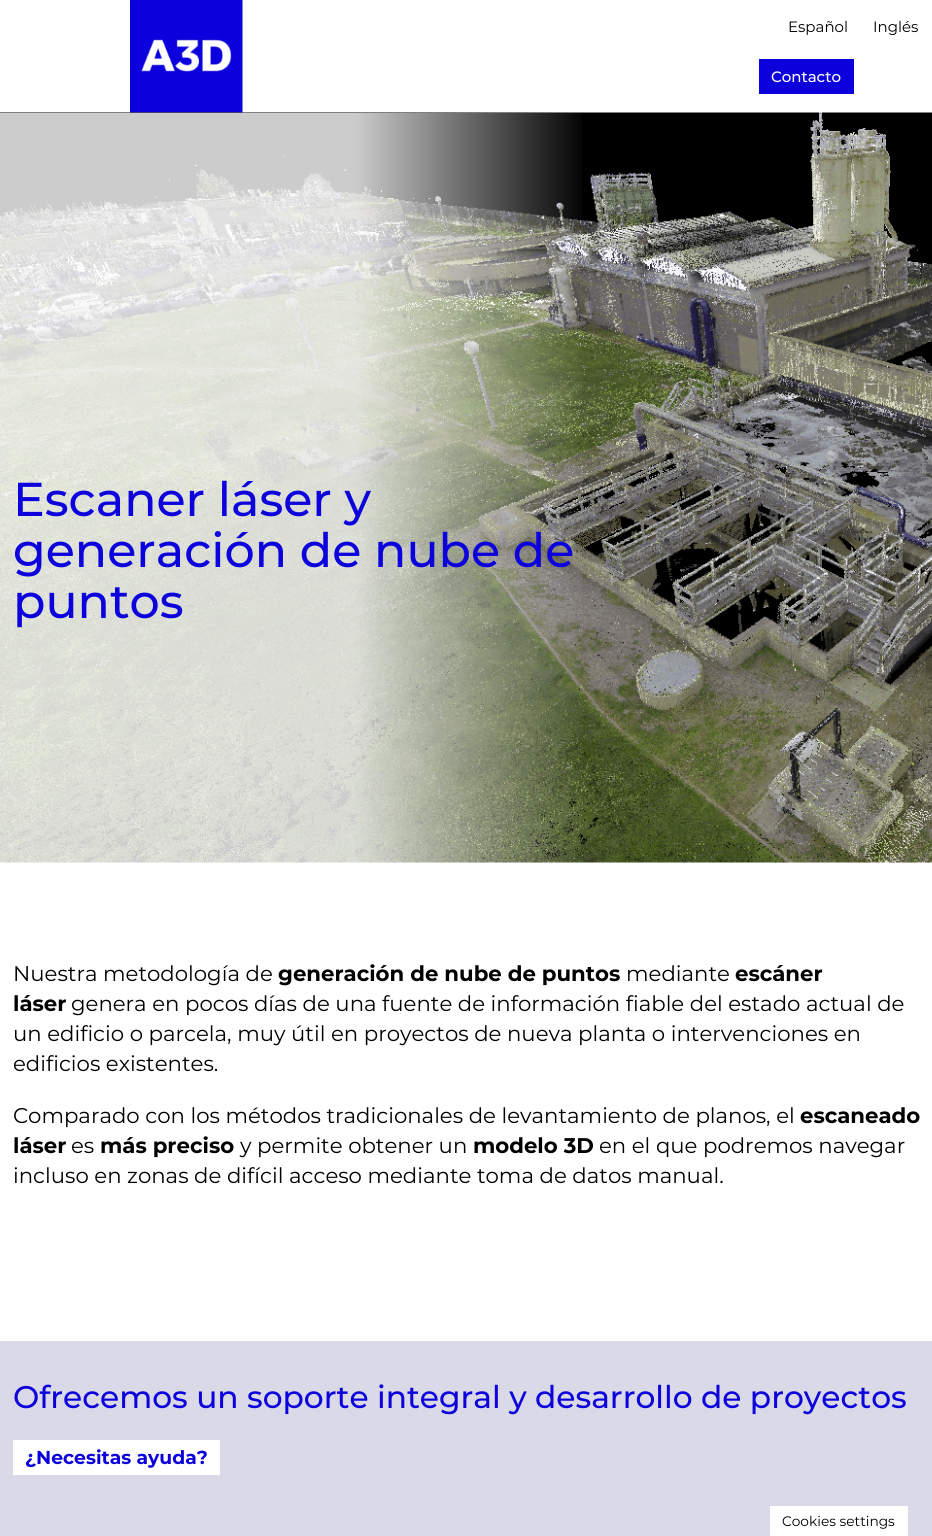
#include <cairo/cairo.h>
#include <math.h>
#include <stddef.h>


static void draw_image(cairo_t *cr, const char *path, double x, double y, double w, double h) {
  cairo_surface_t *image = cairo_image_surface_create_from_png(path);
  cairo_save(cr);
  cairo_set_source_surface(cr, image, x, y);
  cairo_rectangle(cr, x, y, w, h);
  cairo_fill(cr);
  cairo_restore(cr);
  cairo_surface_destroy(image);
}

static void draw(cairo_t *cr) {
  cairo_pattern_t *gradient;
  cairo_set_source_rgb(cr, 1, 1, 1);
  cairo_paint(cr);
  draw_image(cr, "images/1.png", 130, 0, 113, 113);
  cairo_set_source_rgb(cr, 12 / 255.0, 1 / 255.0, 220 / 255.0);
  cairo_rectangle(cr, 759, 59, 95, 35);
  cairo_fill(cr);
  draw_image(cr, "images/2.png", 0, 112, 932, 751);
  gradient = cairo_pattern_create_linear(0, 488, 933, 488);
  cairo_pattern_add_color_stop_rgba(gradient, 0.38, 1, 1, 1, 0.8);
  cairo_pattern_add_color_stop_rgba(gradient, 0.63, 1, 1, 1, 0);
  cairo_set_source(cr, gradient);
  cairo_pattern_destroy(gradient);
  cairo_rectangle(cr, 0, 113, 582, 750);
  cairo_fill(cr);
  cairo_set_source_rgb(cr, 218 / 255.0, 217 / 255.0, 231 / 255.0);
  cairo_rectangle(cr, 0, 1341, 932, 195);
  cairo_fill(cr);
  cairo_set_source_rgb(cr, 1, 1, 1);
  cairo_rectangle(cr, 13, 1440, 207, 35);
  cairo_fill(cr);
  cairo_rectangle(cr, 770, 1506, 138, 30);
  cairo_fill(cr);
  cairo_select_font_face(cr, "Montserrat", CAIRO_FONT_SLANT_NORMAL, CAIRO_FONT_WEIGHT_NORMAL);
  cairo_set_font_size(cr, 15);
  cairo_set_source_rgb(cr, 0, 0, 0);
  cairo_move_to(cr, 788, 32);
  cairo_show_text(cr, "Español");
  cairo_move_to(cr, 873, 32);
  cairo_show_text(cr, "Inglés");
  cairo_select_font_face(cr, "Montserrat Medium", CAIRO_FONT_SLANT_NORMAL, CAIRO_FONT_WEIGHT_NORMAL);
  cairo_set_source_rgb(cr, 1, 1, 1);
  cairo_move_to(cr, 771, 82);
  cairo_show_text(cr, "Contacto");
  cairo_set_font_size(cr, 47.5);
  cairo_set_source_rgb(cr, 12 / 255.0, 1 / 255.0, 220 / 255.0);
  cairo_move_to(cr, 13, 516);
  cairo_show_text(cr, "Escaner láser y");
  cairo_move_to(cr, 13, 567);
  cairo_show_text(cr, "generación de nube de");
  cairo_move_to(cr, 13, 618);
  cairo_show_text(cr, "puntos");
  cairo_select_font_face(cr, "Montserrat", CAIRO_FONT_SLANT_NORMAL, CAIRO_FONT_WEIGHT_NORMAL);
  cairo_set_font_size(cr, 21.25);
  cairo_set_source_rgb(cr, 0, 0, 0);
  cairo_move_to(cr, 13, 981);
  cairo_show_text(cr, "Nuestra metodología de");
  cairo_select_font_face(cr, "Montserrat", CAIRO_FONT_SLANT_NORMAL, CAIRO_FONT_WEIGHT_BOLD);
  cairo_move_to(cr, 278, 981);
  cairo_show_text(cr, "generación de nube de puntos");
  cairo_select_font_face(cr, "Montserrat", CAIRO_FONT_SLANT_NORMAL, CAIRO_FONT_WEIGHT_NORMAL);
  cairo_move_to(cr, 626, 981);
  cairo_show_text(cr, "mediante");
  cairo_select_font_face(cr, "Montserrat", CAIRO_FONT_SLANT_NORMAL, CAIRO_FONT_WEIGHT_BOLD);
  cairo_move_to(cr, 735, 981);
  cairo_show_text(cr, "escáner");
  cairo_move_to(cr, 13, 1011);
  cairo_show_text(cr, "láser");
  cairo_select_font_face(cr, "Montserrat", CAIRO_FONT_SLANT_NORMAL, CAIRO_FONT_WEIGHT_NORMAL);
  cairo_move_to(cr, 71, 1011);
  cairo_show_text(cr, "genera en pocos días de una fuente de información fiable del estado actual de");
  cairo_move_to(cr, 13, 1041);
  cairo_show_text(cr, "un edificio o parcela, muy útil en proyectos de nueva planta o intervenciones en");
  cairo_move_to(cr, 13, 1071);
  cairo_show_text(cr, "edificios existentes.");
  cairo_move_to(cr, 13, 1123);
  cairo_show_text(cr, "Comparado con los métodos tradicionales de levantamiento de planos, el");
  cairo_select_font_face(cr, "Montserrat", CAIRO_FONT_SLANT_NORMAL, CAIRO_FONT_WEIGHT_BOLD);
  cairo_move_to(cr, 800, 1123);
  cairo_show_text(cr, "escaneado");
  cairo_move_to(cr, 13, 1153);
  cairo_show_text(cr, "láser");
  cairo_select_font_face(cr, "Montserrat", CAIRO_FONT_SLANT_NORMAL, CAIRO_FONT_WEIGHT_NORMAL);
  cairo_move_to(cr, 71, 1153);
  cairo_show_text(cr, "es");
  cairo_select_font_face(cr, "Montserrat", CAIRO_FONT_SLANT_NORMAL, CAIRO_FONT_WEIGHT_BOLD);
  cairo_move_to(cr, 100, 1153);
  cairo_show_text(cr, "más preciso");
  cairo_select_font_face(cr, "Montserrat", CAIRO_FONT_SLANT_NORMAL, CAIRO_FONT_WEIGHT_NORMAL);
  cairo_move_to(cr, 240, 1153);
  cairo_show_text(cr, "y permite obtener un");
  cairo_select_font_face(cr, "Montserrat", CAIRO_FONT_SLANT_NORMAL, CAIRO_FONT_WEIGHT_BOLD);
  cairo_move_to(cr, 473, 1153);
  cairo_show_text(cr, "modelo 3D");
  cairo_select_font_face(cr, "Montserrat", CAIRO_FONT_SLANT_NORMAL, CAIRO_FONT_WEIGHT_NORMAL);
  cairo_move_to(cr, 599, 1153);
  cairo_show_text(cr, "en el que podremos navegar");
  cairo_move_to(cr, 13, 1183);
  cairo_show_text(cr, "incluso en zonas de difícil acceso mediante toma de datos manual.");
  cairo_select_font_face(cr, "Montserrat Medium", CAIRO_FONT_SLANT_NORMAL, CAIRO_FONT_WEIGHT_NORMAL);
  cairo_set_font_size(cr, 31.25);
  cairo_set_source_rgb(cr, 12 / 255.0, 1 / 255.0, 220 / 255.0);
  cairo_move_to(cr, 13, 1408);
  cairo_show_text(cr, "Ofrecemos un soporte integral y desarrollo de proyectos");
  cairo_select_font_face(cr, "Montserrat", CAIRO_FONT_SLANT_NORMAL, CAIRO_FONT_WEIGHT_BOLD);
  cairo_set_font_size(cr, 18.75);
  cairo_move_to(cr, 25, 1464);
  cairo_show_text(cr, "¿Necesitas ayuda?");
  cairo_select_font_face(cr, "Montserrat", CAIRO_FONT_SLANT_NORMAL, CAIRO_FONT_WEIGHT_NORMAL);
  cairo_set_font_size(cr, 13.75);
  cairo_set_source_rgb(cr, 0, 0, 0);
  cairo_move_to(cr, 782, 1526);
  cairo_show_text(cr, "Cookies settings");
}

int main(void) {
  cairo_surface_t *surface = cairo_image_surface_create(CAIRO_FORMAT_RGB24, 932, 1536);
  cairo_t *cr = cairo_create(surface);
  cairo_font_options_t *options = cairo_font_options_create();
  cairo_font_options_set_hint_metrics(options, CAIRO_HINT_METRICS_OFF);
  cairo_font_options_set_hint_style(options, CAIRO_HINT_STYLE_NONE);
  cairo_set_font_options(cr, options);
  cairo_set_miter_limit(cr, 4);
  draw(cr);
  cairo_surface_write_to_png(surface, "out.png");
  cairo_font_options_destroy(options);
  cairo_destroy(cr);
  cairo_surface_destroy(surface);
  return 0;
}
